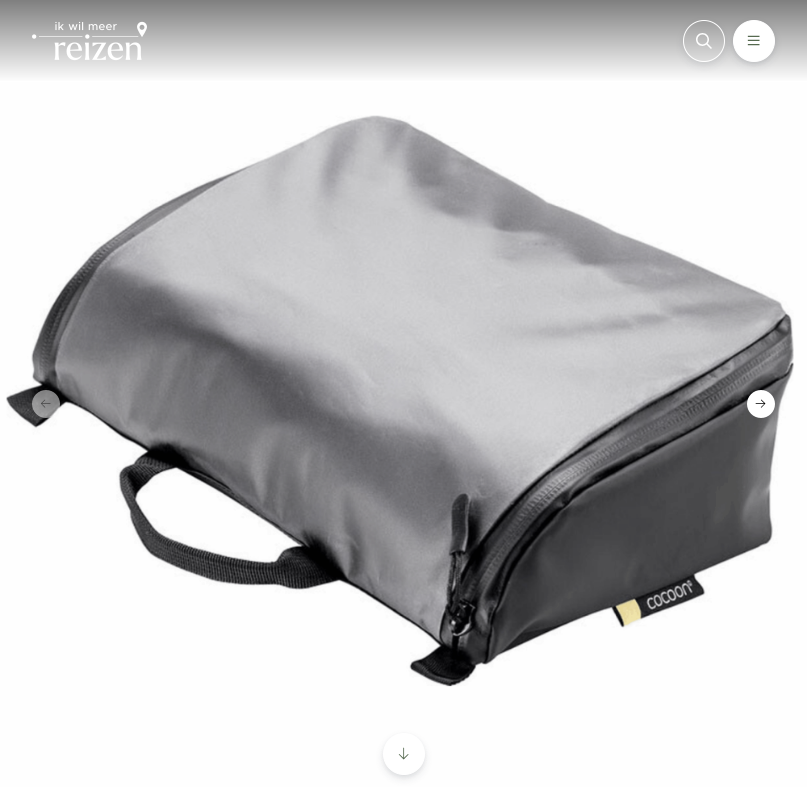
#include <cairo/cairo.h>
#include <math.h>
#include <stddef.h>


static void rounded_rect(cairo_t *cr, double x, double y, double w, double h, double r) {
  cairo_new_sub_path(cr);
  cairo_arc(cr, x + w - r, y + h - r, r, 0, M_PI / 2);
  cairo_arc(cr, x + r, y + h - r, r, M_PI / 2, M_PI);
  cairo_arc(cr, x + r, y + r, r, M_PI, 1.5 * M_PI);
  cairo_arc(cr, x + w - r, y + r, r, 1.5 * M_PI, 2 * M_PI);
  cairo_close_path(cr);
}

static void draw_shadow(cairo_t *cr, double x, double y, double w, double h, double r, double blur, double alpha) {
  cairo_push_group_with_content(cr, CAIRO_CONTENT_ALPHA);
  cairo_set_operator(cr, CAIRO_OPERATOR_SOURCE);
  for (int i = 15; i >= -15 && fmin(w, h) + blur * i / 3 > 0; i -= 2) {
    double e = blur * i / 6;
    cairo_set_source_rgba(cr, 0, 0, 0, alpha * erfc((i - 1) / 8.5) / 2);
    rounded_rect(cr, x - e, y - e, w + 2 * e, h + 2 * e, fmax(0, fmin(r + e + blur * .6, fmin(w, h) / 2 + e)));
    cairo_fill(cr);
  }
  cairo_pattern_t *soft = cairo_pop_group(cr);
  cairo_mask(cr, soft);
  cairo_pattern_destroy(soft);
}

static void draw_image(cairo_t *cr, const char *path, double x, double y, double w, double h) {
  cairo_surface_t *image = cairo_image_surface_create_from_png(path);
  cairo_save(cr);
  cairo_set_source_surface(cr, image, x, y);
  cairo_rectangle(cr, x, y, w, h);
  cairo_fill(cr);
  cairo_restore(cr);
  cairo_surface_destroy(image);
}

static void draw(cairo_t *cr) {
  cairo_pattern_t *gradient;
  cairo_set_source_rgb(cr, 1, 1, 1);
  cairo_paint(cr);
  gradient = cairo_pattern_create_linear(404, 0, 404, 82);
  cairo_pattern_add_color_stop_rgba(gradient, 0, 127 / 255.0, 127 / 255.0, 127 / 255.0, 1);
  cairo_pattern_add_color_stop_rgba(gradient, 1, 254 / 255.0, 254 / 255.0, 254 / 255.0, 1);
  cairo_set_source(cr, gradient);
  cairo_pattern_destroy(gradient);
  cairo_rectangle(cr, 0, 0, 807, 81);
  cairo_fill(cr);
  draw_image(cr, "images/1.png", 32, 21, 115, 40);
  cairo_set_source_rgb(cr, 16 / 255.0, 24 / 255.0, 40 / 255.0);
  draw_shadow(cr, 733, 24, 42, 42, 21, 4, 0.1);
  draw_shadow(cr, 733, 22, 42, 42, 21, 2, 0.06);
  cairo_set_source_rgb(cr, 1, 1, 1);
  cairo_arc(cr, 754, 41, 20.5, 0, 2 * M_PI);
  cairo_fill_preserve(cr);
  cairo_set_line_width(cr, 1);
  cairo_stroke(cr);
  cairo_save(cr);
  cairo_set_fill_rule(cr, CAIRO_FILL_RULE_EVEN_ODD);
  cairo_new_path(cr);
  cairo_move_to(cr, 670, 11);
  cairo_line_to(cr, 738, 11);
  cairo_line_to(cr, 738, 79);
  cairo_line_to(cr, 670, 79);
  cairo_close_path(cr);
  cairo_move_to(cr, 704, 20);
  cairo_curve_to(cr, 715.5, 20, 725, 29.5, 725, 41);
  cairo_curve_to(cr, 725, 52.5, 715.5, 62, 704, 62);
  cairo_curve_to(cr, 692.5, 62, 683, 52.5, 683, 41);
  cairo_curve_to(cr, 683, 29.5, 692.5, 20, 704, 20);
  cairo_close_path(cr);
  cairo_clip(cr);
  cairo_set_source_rgb(cr, 16 / 255.0, 24 / 255.0, 40 / 255.0);
  draw_shadow(cr, 683, 24, 42, 42, 21, 4, 0.1);
  cairo_restore(cr);
  cairo_arc(cr, 704, 41, 20.5, 0, 2 * M_PI);
  cairo_stroke(cr);
  draw_image(cr, "images/2.png", 696, 33, 16, 16);
  draw_image(cr, "images/3.png", 747, 35, 13, 11);
  draw_image(cr, "images/4.png", 0, 82, 807, 705);
  cairo_set_source_rgba(cr, 1, 1, 1, 0.5);
  cairo_arc(cr, 46, 404, 14, 0, 2 * M_PI);
  cairo_fill(cr);
  draw_image(cr, "images/5.png", 40, 399, 11, 9);
  cairo_set_source_rgb(cr, 1, 1, 1);
  cairo_arc(cr, 761, 404, 14, 0, 2 * M_PI);
  cairo_fill(cr);
  draw_image(cr, "images/6.png", 755, 399, 11, 9);
  cairo_set_source_rgb(cr, 16 / 255.0, 24 / 255.0, 40 / 255.0);
  draw_shadow(cr, 383, 737, 42, 42, 21, 4, 0.1);
  draw_shadow(cr, 383, 735, 42, 42, 21, 2, 0.06);
  cairo_set_source_rgb(cr, 1, 1, 1);
  cairo_arc(cr, 404, 754, 20.5, 0, 2 * M_PI);
  cairo_fill_preserve(cr);
  cairo_stroke(cr);
  draw_image(cr, "images/7.png", 398, 747, 11, 13);
}

int main(void) {
  cairo_surface_t *surface = cairo_image_surface_create(CAIRO_FORMAT_RGB24, 807, 787);
  cairo_t *cr = cairo_create(surface);
  cairo_font_options_t *options = cairo_font_options_create();
  cairo_font_options_set_hint_metrics(options, CAIRO_HINT_METRICS_OFF);
  cairo_font_options_set_hint_style(options, CAIRO_HINT_STYLE_NONE);
  cairo_set_font_options(cr, options);
  cairo_set_miter_limit(cr, 4);
  draw(cr);
  cairo_surface_write_to_png(surface, "out.png");
  cairo_font_options_destroy(options);
  cairo_destroy(cr);
  cairo_surface_destroy(surface);
  return 0;
}
